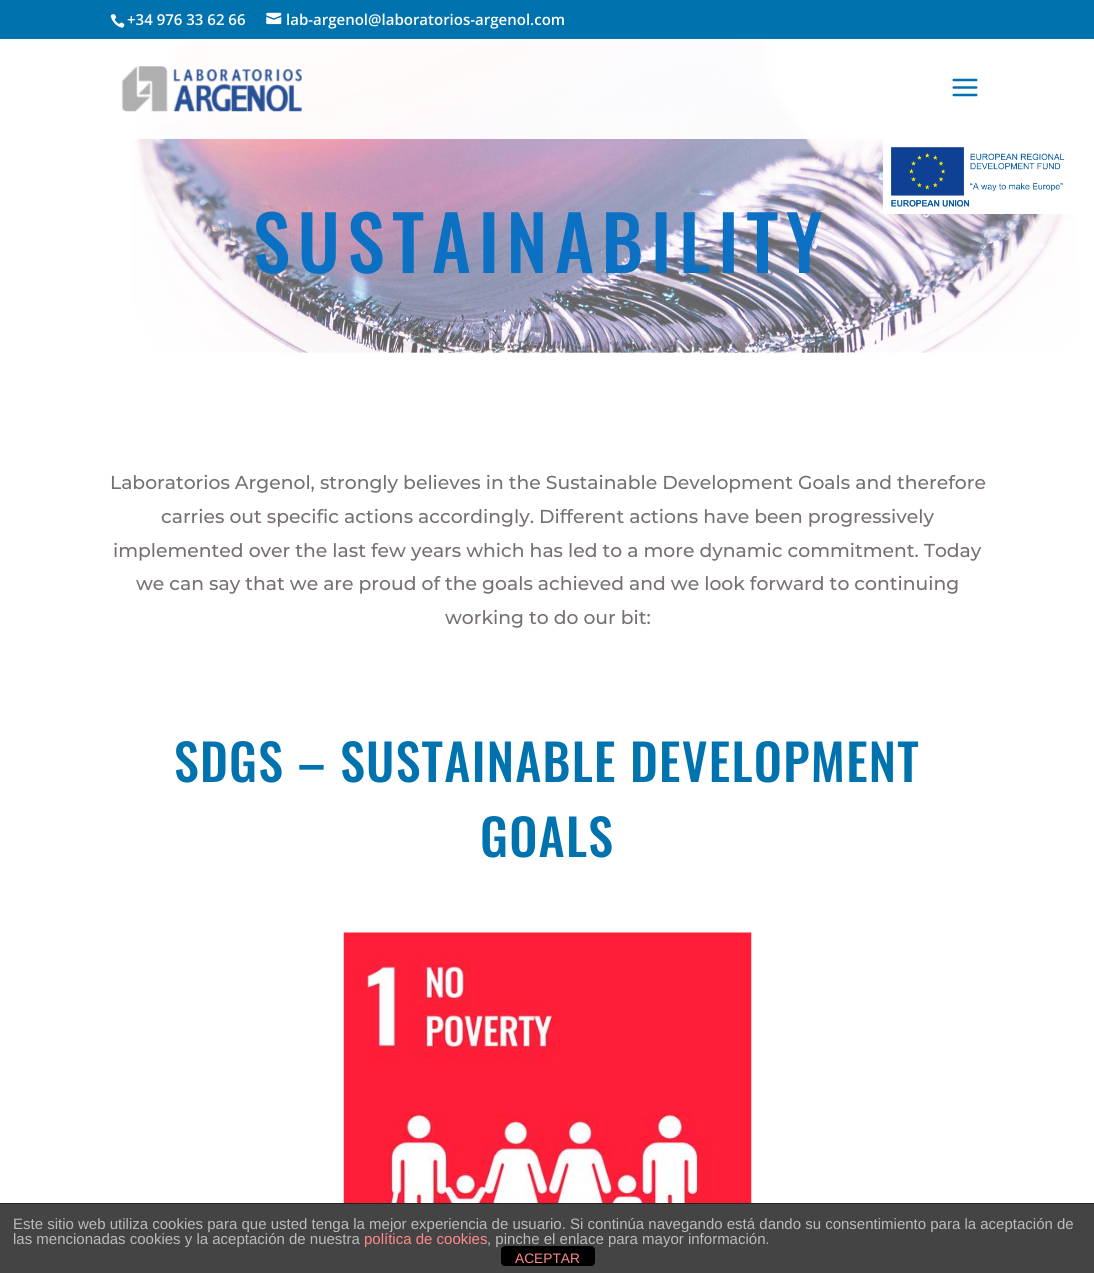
#include <cairo/cairo.h>
#include <math.h>
#include <stddef.h>


static void draw_spaced(cairo_t *cr, double x, double y, const char *s, double letter, double word) {
  cairo_move_to(cr, x, y);
  while (*s) {
    char ch[5] = {0};
    int n = 0;
    do ch[n++] = *s++; while ((*s & 0xC0) == 0x80);
    cairo_show_text(cr, ch);
    cairo_rel_move_to(cr, letter + word * (*ch == ' '), 0);
  }
}

static void rounded_rect(cairo_t *cr, double x, double y, double w, double h, double r) {
  cairo_new_sub_path(cr);
  cairo_arc(cr, x + w - r, y + h - r, r, 0, M_PI / 2);
  cairo_arc(cr, x + r, y + h - r, r, M_PI / 2, M_PI);
  cairo_arc(cr, x + r, y + r, r, M_PI, 1.5 * M_PI);
  cairo_arc(cr, x + w - r, y + r, r, 1.5 * M_PI, 2 * M_PI);
  cairo_close_path(cr);
}

static void draw_image(cairo_t *cr, const char *path, double x, double y, double w, double h) {
  cairo_surface_t *image = cairo_image_surface_create_from_png(path);
  cairo_save(cr);
  cairo_set_source_surface(cr, image, x, y);
  cairo_rectangle(cr, x, y, w, h);
  cairo_fill(cr);
  cairo_restore(cr);
  cairo_surface_destroy(image);
}

static void draw(cairo_t *cr) {
  cairo_set_source_rgb(cr, 1, 1, 1);
  cairo_paint(cr);
  cairo_set_source_rgb(cr, 0, 115 / 255.0, 175 / 255.0);
  cairo_rectangle(cr, 0, 0, 1094, 39);
  cairo_fill(cr);
  draw_image(cr, "images/1.png", 110, 14, 15, 14);
  draw_image(cr, "images/2.png", 266, 12, 16, 13);
  draw_image(cr, "images/5.png", 132, 39, 943, 314);
  cairo_set_source_rgba(cr, 1, 1, 1, 0.95);
  cairo_rectangle(cr, 132, 39, 943, 100);
  cairo_fill(cr);
  draw_image(cr, "images/3.png", 121, 66, 181, 46);
  draw_image(cr, "images/4.png", 952, 78, 26, 19);
  draw_image(cr, "images/6.png", 343, 932, 409, 271);
  cairo_set_source_rgb(cr, 1, 1, 1);
  cairo_rectangle(cr, 883, 139, 192, 75);
  cairo_fill(cr);
  draw_image(cr, "images/7.png", 891, 147, 174, 60);
  cairo_set_source_rgb(cr, 68 / 255.0, 68 / 255.0, 68 / 255.0);
  cairo_rectangle(cr, 0, 1204, 1094, 69);
  cairo_fill(cr);
  cairo_set_source_rgb(cr, 34 / 255.0, 34 / 255.0, 34 / 255.0);
  cairo_rectangle(cr, 0, 1203, 1094, 1);
  cairo_fill(cr);
  cairo_set_source_rgb(cr, 0, 0, 0);
  rounded_rect(cr, 501, 1246, 94, 20, 4);
  cairo_fill(cr);
  cairo_select_font_face(cr, "Open Sans SemiBold", CAIRO_FONT_SLANT_NORMAL, CAIRO_FONT_WEIGHT_NORMAL);
  cairo_set_font_size(cr, 15);
  cairo_set_source_rgb(cr, 1, 1, 1);
  cairo_move_to(cr, 127, 25);
  cairo_show_text(cr, "+34 976 33 62 66");
  cairo_move_to(cr, 286, 25);
  cairo_show_text(cr, "lab-argenol@laboratorios-argenol.com");
  cairo_select_font_face(cr, "Oswald Medium", CAIRO_FONT_SLANT_NORMAL, CAIRO_FONT_WEIGHT_NORMAL);
  cairo_set_font_size(cr, 75);
  cairo_set_source_rgb(cr, 12 / 255.0, 113 / 255.0, 195 / 255.0);
  draw_spaced(cr, 253, 273, "SUSTAINABILITY", 7.5, 0);
  cairo_select_font_face(cr, "Montserrat Medium", CAIRO_FONT_SLANT_NORMAL, CAIRO_FONT_WEIGHT_NORMAL);
  cairo_set_font_size(cr, 18.75);
  cairo_set_source_rgb(cr, 120 / 255.0, 112 / 255.0, 112 / 255.0);
  cairo_move_to(cr, 110, 489);
  cairo_show_text(cr, "Laboratorios Argenol, strongly believes in the Sustainable Development Goals and therefore");
  cairo_move_to(cr, 161, 523);
  cairo_show_text(cr, "carries out specific actions accordingly. Different actions have been progressively");
  cairo_move_to(cr, 113, 557);
  cairo_show_text(cr, "implemented over the last few years which has led to a more dynamic commitment. Today");
  cairo_move_to(cr, 136, 590);
  cairo_show_text(cr, "we can say that we are proud of the goals achieved and we look forward to continuing");
  cairo_move_to(cr, 445, 624);
  cairo_show_text(cr, "working to do our bit:");
  cairo_select_font_face(cr, "Oswald Medium", CAIRO_FONT_SLANT_NORMAL, CAIRO_FONT_WEIGHT_NORMAL);
  cairo_set_font_size(cr, 50);
  cairo_set_source_rgb(cr, 0, 115 / 255.0, 175 / 255.0);
  draw_spaced(cr, 174, 782, "SDGS – SUSTAINABLE DEVELOPMENT", 1.25, 0);
  draw_spaced(cr, 480, 857, "GOALS", 1.25, 0);
  cairo_select_font_face(cr, "Liberation Sans", CAIRO_FONT_SLANT_NORMAL, CAIRO_FONT_WEIGHT_NORMAL);
  cairo_set_font_size(cr, 15);
  cairo_set_source_rgb(cr, 187 / 255.0, 187 / 255.0, 187 / 255.0);
  cairo_move_to(cr, 13, 1229);
  cairo_show_text(cr, "Este sitio web utiliza cookies para que usted tenga la mejor experiencia de usuario. Si continúa navegando está dando su consentimiento para la aceptación de");
  cairo_move_to(cr, 13, 1244);
  cairo_show_text(cr, "las mencionadas cookies y la aceptación de nuestra");
  cairo_set_source_rgb(cr, 1, 136 / 255.0, 136 / 255.0);
  cairo_move_to(cr, 364, 1244);
  cairo_show_text(cr, "política de cookies");
  cairo_set_source_rgb(cr, 187 / 255.0, 187 / 255.0, 187 / 255.0);
  cairo_move_to(cr, 487, 1244);
  cairo_show_text(cr, ", pinche el enlace para mayor información.");
  cairo_set_font_size(cr, 13.75);
  cairo_set_source_rgb(cr, 1, 136 / 255.0, 136 / 255.0);
  cairo_move_to(cr, 515, 1263);
  cairo_show_text(cr, "ACEPTAR");
}

int main(void) {
  cairo_surface_t *surface = cairo_image_surface_create(CAIRO_FORMAT_RGB24, 1094, 1273);
  cairo_t *cr = cairo_create(surface);
  cairo_font_options_t *options = cairo_font_options_create();
  cairo_font_options_set_hint_metrics(options, CAIRO_HINT_METRICS_OFF);
  cairo_font_options_set_hint_style(options, CAIRO_HINT_STYLE_NONE);
  cairo_set_font_options(cr, options);
  cairo_set_miter_limit(cr, 4);
  draw(cr);
  cairo_surface_write_to_png(surface, "out.png");
  cairo_font_options_destroy(options);
  cairo_destroy(cr);
  cairo_surface_destroy(surface);
  return 0;
}
